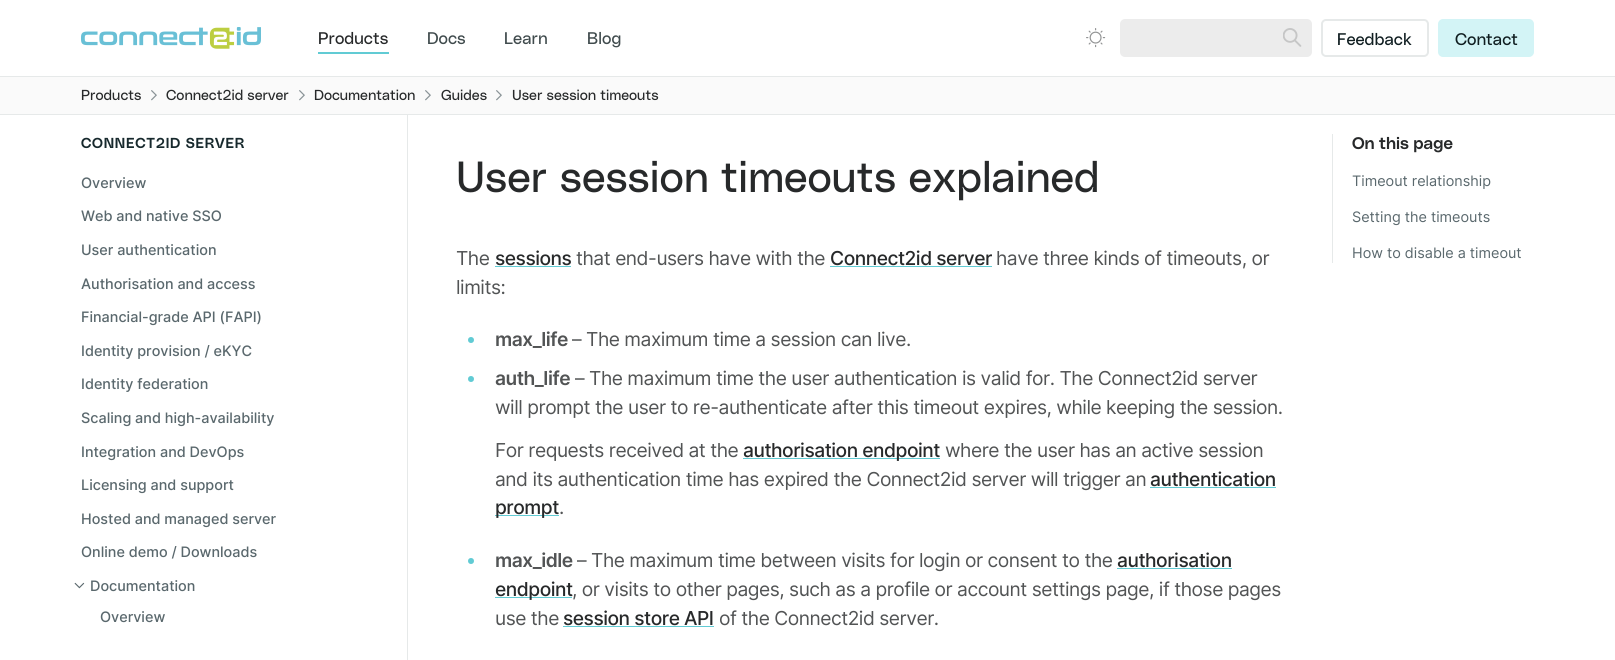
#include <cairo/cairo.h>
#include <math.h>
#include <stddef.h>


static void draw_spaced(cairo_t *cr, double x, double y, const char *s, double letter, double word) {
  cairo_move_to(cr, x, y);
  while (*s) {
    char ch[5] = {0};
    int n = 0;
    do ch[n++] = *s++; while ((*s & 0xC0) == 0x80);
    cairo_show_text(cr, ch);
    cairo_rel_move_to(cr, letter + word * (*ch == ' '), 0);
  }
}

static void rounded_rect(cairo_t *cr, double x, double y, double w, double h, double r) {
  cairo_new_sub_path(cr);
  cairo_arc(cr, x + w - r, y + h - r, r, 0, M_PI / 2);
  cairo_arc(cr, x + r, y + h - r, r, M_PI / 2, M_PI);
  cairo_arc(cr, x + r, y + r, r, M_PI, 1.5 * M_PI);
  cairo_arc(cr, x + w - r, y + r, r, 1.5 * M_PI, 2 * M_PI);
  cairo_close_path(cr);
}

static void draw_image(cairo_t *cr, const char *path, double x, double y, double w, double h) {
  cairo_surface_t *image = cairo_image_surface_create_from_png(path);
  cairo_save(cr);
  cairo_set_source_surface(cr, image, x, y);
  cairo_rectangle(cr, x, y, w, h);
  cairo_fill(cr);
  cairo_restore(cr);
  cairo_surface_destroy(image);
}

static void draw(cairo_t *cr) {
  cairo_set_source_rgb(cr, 1, 1, 1);
  cairo_paint(cr);
  cairo_set_source_rgb(cr, 230 / 255.0, 233 / 255.0, 233 / 255.0);
  cairo_rectangle(cr, 0, 76, 1615, 1);
  cairo_fill(cr);
  draw_image(cr, "images/1.png", 81, 27, 180, 22);
  cairo_set_source_rgb(cr, 97 / 255.0, 203 / 255.0, 212 / 255.0);
  cairo_rectangle(cr, 318, 52, 71, 2);
  cairo_fill(cr);
  draw_image(cr, "images/2.png", 1086, 28, 20, 20);
  cairo_set_source_rgb(cr, 236 / 255.0, 236 / 255.0, 236 / 255.0);
  rounded_rect(cr, 1121, 20, 190, 36, 4);
  cairo_fill_preserve(cr);
  cairo_stroke(cr);
  draw_image(cr, "images/3.png", 1283, 28, 19, 19);
  rounded_rect(cr, 1322, 20, 106, 36, 4);
  cairo_set_source_rgb(cr, 230 / 255.0, 233 / 255.0, 233 / 255.0);
  cairo_stroke(cr);
  cairo_set_source_rgb(cr, 211 / 255.0, 244 / 255.0, 246 / 255.0);
  rounded_rect(cr, 1439, 20, 94, 36, 4);
  cairo_fill_preserve(cr);
  cairo_stroke(cr);
  cairo_set_source_rgb(cr, 250 / 255.0, 250 / 255.0, 250 / 255.0);
  cairo_rectangle(cr, 0, 77, 1615, 37);
  cairo_fill(cr);
  cairo_set_source_rgb(cr, 230 / 255.0, 233 / 255.0, 233 / 255.0);
  cairo_rectangle(cr, 0, 114, 1615, 1);
  cairo_fill(cr);
  draw_image(cr, "images/4.png", 151, 90, 6, 11);
  draw_image(cr, "images/4.png", 299, 90, 6, 11);
  draw_image(cr, "images/4.png", 425, 90, 6, 11);
  draw_image(cr, "images/4.png", 496, 90, 6, 11);
  cairo_rectangle(cr, 407, 115, 1, 545);
  cairo_fill(cr);
  draw_image(cr, "images/5.png", 74, 582, 11, 7);
  cairo_set_source_rgb(cr, 97 / 255.0, 203 / 255.0, 212 / 255.0);
  cairo_rectangle(cr, 495, 266, 76, 1);
  cairo_fill(cr);
  cairo_rectangle(cr, 830, 266, 162, 1);
  cairo_fill(cr);
  cairo_arc(cr, 471, 340, 3, 0, 2 * M_PI);
  cairo_fill(cr);
  cairo_arc(cr, 471, 379, 3, 0, 2 * M_PI);
  cairo_fill(cr);
  cairo_rectangle(cr, 743, 458, 197, 1);
  cairo_fill(cr);
  cairo_rectangle(cr, 1150, 487, 126, 1);
  cairo_fill(cr);
  cairo_rectangle(cr, 495, 515, 64, 1);
  cairo_fill(cr);
  cairo_arc(cr, 471, 561, 3, 0, 2 * M_PI);
  cairo_fill(cr);
  cairo_rectangle(cr, 1117, 568, 115, 1);
  cairo_fill(cr);
  cairo_rectangle(cr, 495, 597, 77, 1);
  cairo_fill(cr);
  cairo_rectangle(cr, 563, 626, 151, 1);
  cairo_fill(cr);
  cairo_set_source_rgb(cr, 230 / 255.0, 233 / 255.0, 233 / 255.0);
  cairo_rectangle(cr, 1332, 134, 1, 129);
  cairo_fill(cr);
  cairo_select_font_face(cr, "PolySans", CAIRO_FONT_SLANT_NORMAL, CAIRO_FONT_WEIGHT_NORMAL);
  cairo_set_font_size(cr, 16.75);
  cairo_set_source_rgb(cr, 39 / 255.0, 41 / 255.0, 42 / 255.0);
  cairo_move_to(cr, 318, 44);
  cairo_show_text(cr, "Products");
  cairo_set_source_rgb(cr, 64 / 255.0, 75 / 255.0, 77 / 255.0);
  cairo_move_to(cr, 427, 44);
  cairo_show_text(cr, "Docs");
  cairo_move_to(cr, 504, 44);
  cairo_show_text(cr, "Learn");
  cairo_move_to(cr, 587, 44);
  cairo_show_text(cr, "Blog");
  cairo_set_source_rgb(cr, 16 / 255.0, 30 / 255.0, 33 / 255.0);
  cairo_move_to(cr, 1337, 45);
  cairo_show_text(cr, "Feedback");
  cairo_move_to(cr, 1455, 45);
  cairo_show_text(cr, "Contact");
  cairo_set_font_size(cr, 14.4);
  cairo_set_source_rgb(cr, 39 / 255.0, 41 / 255.0, 42 / 255.0);
  cairo_move_to(cr, 81, 100);
  cairo_show_text(cr, "Products");
  cairo_move_to(cr, 166, 100);
  cairo_show_text(cr, "Connect2id server");
  cairo_move_to(cr, 314, 100);
  cairo_show_text(cr, "Documentation");
  cairo_move_to(cr, 441, 100);
  cairo_show_text(cr, "Guides");
  cairo_move_to(cr, 512, 100);
  cairo_show_text(cr, "User session timeouts");
  cairo_select_font_face(cr, "PolySans SemiBold", CAIRO_FONT_SLANT_NORMAL, CAIRO_FONT_WEIGHT_NORMAL);
  cairo_set_source_rgb(cr, 23 / 255.0, 41 / 255.0, 45 / 255.0);
  draw_spaced(cr, 81, 148, "CONNECT2ID SERVER", 0.75, 0);
  cairo_select_font_face(cr, "Inter Medium", CAIRO_FONT_SLANT_NORMAL, CAIRO_FONT_WEIGHT_NORMAL);
  cairo_set_source_rgb(cr, 90 / 255.0, 104 / 255.0, 109 / 255.0);
  cairo_move_to(cr, 81, 188);
  cairo_show_text(cr, "Overview");
  cairo_move_to(cr, 81, 221);
  cairo_show_text(cr, "Web and native SSO");
  cairo_move_to(cr, 81, 255);
  cairo_show_text(cr, "User authentication");
  cairo_move_to(cr, 81, 289);
  cairo_show_text(cr, "Authorisation and access");
  cairo_move_to(cr, 81, 322);
  cairo_show_text(cr, "Financial-grade API (FAPI)");
  cairo_move_to(cr, 81, 356);
  cairo_show_text(cr, "Identity provision / eKYC");
  cairo_move_to(cr, 81, 389);
  cairo_show_text(cr, "Identity federation");
  cairo_move_to(cr, 81, 423);
  cairo_show_text(cr, "Scaling and high-availability");
  cairo_move_to(cr, 81, 457);
  cairo_show_text(cr, "Integration and DevOps");
  cairo_move_to(cr, 81, 490);
  cairo_show_text(cr, "Licensing and support");
  cairo_move_to(cr, 81, 524);
  cairo_show_text(cr, "Hosted and managed server");
  cairo_move_to(cr, 81, 557);
  cairo_show_text(cr, "Online demo / Downloads");
  cairo_move_to(cr, 90, 591);
  cairo_show_text(cr, "Documentation");
  cairo_move_to(cr, 100, 622);
  cairo_show_text(cr, "Overview");
  cairo_select_font_face(cr, "PolySans", CAIRO_FONT_SLANT_NORMAL, CAIRO_FONT_WEIGHT_NORMAL);
  cairo_set_font_size(cr, 43.25);
  cairo_set_source_rgb(cr, 39 / 255.0, 41 / 255.0, 42 / 255.0);
  cairo_move_to(cr, 456, 192);
  cairo_show_text(cr, "User session timeouts explained");
  cairo_select_font_face(cr, "Inter", CAIRO_FONT_SLANT_NORMAL, CAIRO_FONT_WEIGHT_NORMAL);
  cairo_set_font_size(cr, 19.2);
  cairo_set_source_rgb(cr, 82 / 255.0, 84 / 255.0, 85 / 255.0);
  draw_spaced(cr, 456, 265, "The", -0.48, 0);
  cairo_select_font_face(cr, "Inter Medium", CAIRO_FONT_SLANT_NORMAL, CAIRO_FONT_WEIGHT_NORMAL);
  cairo_set_source_rgb(cr, 39 / 255.0, 41 / 255.0, 42 / 255.0);
  draw_spaced(cr, 495, 265, "sessions", -0.48, 0);
  cairo_select_font_face(cr, "Inter", CAIRO_FONT_SLANT_NORMAL, CAIRO_FONT_WEIGHT_NORMAL);
  cairo_set_source_rgb(cr, 82 / 255.0, 84 / 255.0, 85 / 255.0);
  draw_spaced(cr, 576, 265, "that end-users have with the", -0.48, 0);
  cairo_select_font_face(cr, "Inter Medium", CAIRO_FONT_SLANT_NORMAL, CAIRO_FONT_WEIGHT_NORMAL);
  cairo_set_source_rgb(cr, 39 / 255.0, 41 / 255.0, 42 / 255.0);
  draw_spaced(cr, 830, 265, "Connect2id server", -0.48, 0);
  cairo_select_font_face(cr, "Inter", CAIRO_FONT_SLANT_NORMAL, CAIRO_FONT_WEIGHT_NORMAL);
  cairo_set_source_rgb(cr, 82 / 255.0, 84 / 255.0, 85 / 255.0);
  draw_spaced(cr, 996, 265, "have three kinds of timeouts, or", -0.48, 0);
  draw_spaced(cr, 456, 294, "limits:", -0.48, 0);
  cairo_select_font_face(cr, "Inter SemiBold", CAIRO_FONT_SLANT_NORMAL, CAIRO_FONT_WEIGHT_NORMAL);
  draw_spaced(cr, 495, 346, "max_life", -0.48, 0);
  cairo_select_font_face(cr, "Inter", CAIRO_FONT_SLANT_NORMAL, CAIRO_FONT_WEIGHT_NORMAL);
  draw_spaced(cr, 572, 346, "– The maximum time a session can live.", -0.48, 0);
  cairo_select_font_face(cr, "Inter SemiBold", CAIRO_FONT_SLANT_NORMAL, CAIRO_FONT_WEIGHT_NORMAL);
  draw_spaced(cr, 495, 385, "auth_life", -0.48, 0);
  cairo_select_font_face(cr, "Inter", CAIRO_FONT_SLANT_NORMAL, CAIRO_FONT_WEIGHT_NORMAL);
  draw_spaced(cr, 575, 385, "– The maximum time the user authentication is valid for. The Connect2id server", -0.48, 0);
  draw_spaced(cr, 495, 414, "will prompt the user to re-authenticate after this timeout expires, while keeping the session.", -0.48, 0);
  draw_spaced(cr, 495, 457, "For requests received at the", -0.48, 0);
  cairo_select_font_face(cr, "Inter Medium", CAIRO_FONT_SLANT_NORMAL, CAIRO_FONT_WEIGHT_NORMAL);
  cairo_set_source_rgb(cr, 39 / 255.0, 41 / 255.0, 42 / 255.0);
  draw_spaced(cr, 743, 457, "authorisation endpoint", -0.48, 0);
  cairo_select_font_face(cr, "Inter", CAIRO_FONT_SLANT_NORMAL, CAIRO_FONT_WEIGHT_NORMAL);
  cairo_set_source_rgb(cr, 82 / 255.0, 84 / 255.0, 85 / 255.0);
  draw_spaced(cr, 945, 457, "where the user has an active session", -0.48, 0);
  draw_spaced(cr, 495, 486, "and its authentication time has expired the Connect2id server will trigger an", -0.48, 0);
  cairo_select_font_face(cr, "Inter Medium", CAIRO_FONT_SLANT_NORMAL, CAIRO_FONT_WEIGHT_NORMAL);
  cairo_set_source_rgb(cr, 39 / 255.0, 41 / 255.0, 42 / 255.0);
  draw_spaced(cr, 1150, 486, "authentication", -0.48, 0);
  draw_spaced(cr, 495, 514, "prompt", -0.48, 0);
  cairo_select_font_face(cr, "Inter", CAIRO_FONT_SLANT_NORMAL, CAIRO_FONT_WEIGHT_NORMAL);
  cairo_set_source_rgb(cr, 82 / 255.0, 84 / 255.0, 85 / 255.0);
  draw_spaced(cr, 559, 514, ".", -0.48, 0);
  cairo_select_font_face(cr, "Inter SemiBold", CAIRO_FONT_SLANT_NORMAL, CAIRO_FONT_WEIGHT_NORMAL);
  draw_spaced(cr, 495, 567, "max_idle", -0.48, 0);
  cairo_select_font_face(cr, "Inter", CAIRO_FONT_SLANT_NORMAL, CAIRO_FONT_WEIGHT_NORMAL);
  draw_spaced(cr, 577, 567, "– The maximum time between visits for login or consent to the", -0.48, 0);
  cairo_select_font_face(cr, "Inter Medium", CAIRO_FONT_SLANT_NORMAL, CAIRO_FONT_WEIGHT_NORMAL);
  cairo_set_source_rgb(cr, 39 / 255.0, 41 / 255.0, 42 / 255.0);
  draw_spaced(cr, 1117, 567, "authorisation", -0.48, 0);
  draw_spaced(cr, 495, 596, "endpoint", -0.48, 0);
  cairo_select_font_face(cr, "Inter", CAIRO_FONT_SLANT_NORMAL, CAIRO_FONT_WEIGHT_NORMAL);
  cairo_set_source_rgb(cr, 82 / 255.0, 84 / 255.0, 85 / 255.0);
  draw_spaced(cr, 572, 596, ", or visits to other pages, such as a profile or account settings page, if those pages", -0.48, 0);
  draw_spaced(cr, 495, 625, "use the", -0.48, 0);
  cairo_select_font_face(cr, "Inter Medium", CAIRO_FONT_SLANT_NORMAL, CAIRO_FONT_WEIGHT_NORMAL);
  cairo_set_source_rgb(cr, 39 / 255.0, 41 / 255.0, 42 / 255.0);
  draw_spaced(cr, 563, 625, "session store API", -0.48, 0);
  cairo_select_font_face(cr, "Inter", CAIRO_FONT_SLANT_NORMAL, CAIRO_FONT_WEIGHT_NORMAL);
  cairo_set_source_rgb(cr, 82 / 255.0, 84 / 255.0, 85 / 255.0);
  draw_spaced(cr, 719, 625, "of the Connect2id server.", -0.48, 0);
  cairo_select_font_face(cr, "PolySans SemiBold", CAIRO_FONT_SLANT_NORMAL, CAIRO_FONT_WEIGHT_NORMAL);
  cairo_set_font_size(cr, 16.75);
  cairo_set_source_rgb(cr, 39 / 255.0, 41 / 255.0, 42 / 255.0);
  cairo_move_to(cr, 1352, 149);
  cairo_show_text(cr, "On this page");
  cairo_select_font_face(cr, "Inter", CAIRO_FONT_SLANT_NORMAL, CAIRO_FONT_WEIGHT_NORMAL);
  cairo_set_font_size(cr, 14.4);
  cairo_set_source_rgb(cr, 90 / 255.0, 104 / 255.0, 109 / 255.0);
  cairo_move_to(cr, 1352, 186);
  cairo_show_text(cr, "Timeout relationship");
  cairo_move_to(cr, 1352, 222);
  cairo_show_text(cr, "Setting the timeouts");
  cairo_move_to(cr, 1352, 258);
  cairo_show_text(cr, "How to disable a timeout");
}

int main(void) {
  cairo_surface_t *surface = cairo_image_surface_create(CAIRO_FORMAT_RGB24, 1615, 660);
  cairo_t *cr = cairo_create(surface);
  cairo_font_options_t *options = cairo_font_options_create();
  cairo_font_options_set_hint_metrics(options, CAIRO_HINT_METRICS_OFF);
  cairo_font_options_set_hint_style(options, CAIRO_HINT_STYLE_NONE);
  cairo_set_font_options(cr, options);
  cairo_set_miter_limit(cr, 4);
  draw(cr);
  cairo_surface_write_to_png(surface, "out.png");
  cairo_font_options_destroy(options);
  cairo_destroy(cr);
  cairo_surface_destroy(surface);
  return 0;
}
